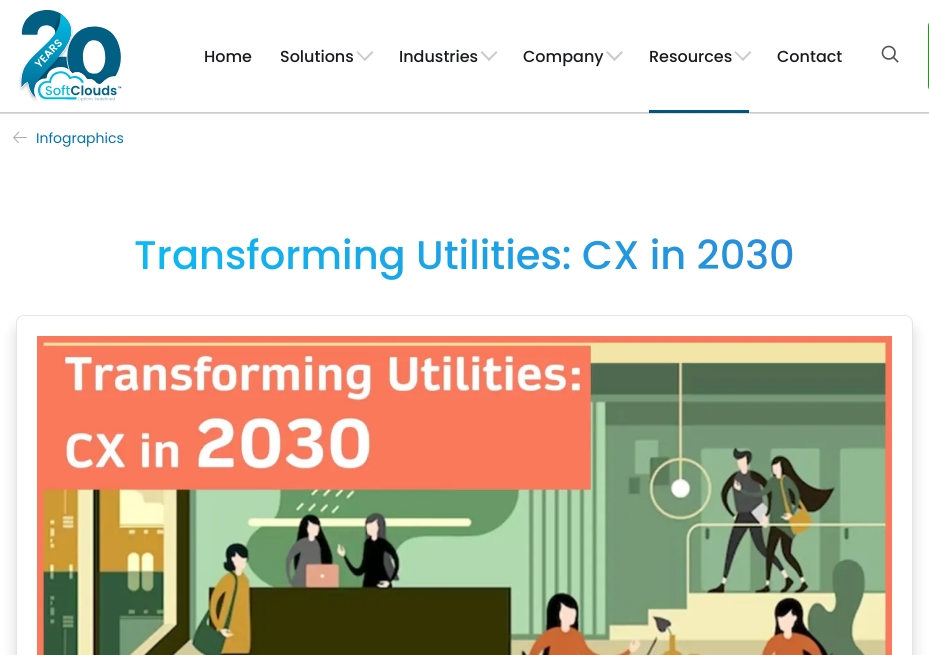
#include <cairo/cairo.h>
#include <math.h>
#include <stddef.h>


static void rounded_rect(cairo_t *cr, double x, double y, double w, double h, double r) {
  cairo_new_sub_path(cr);
  cairo_arc(cr, x + w - r, y + h - r, r, 0, M_PI / 2);
  cairo_arc(cr, x + r, y + h - r, r, M_PI / 2, M_PI);
  cairo_arc(cr, x + r, y + r, r, M_PI, 1.5 * M_PI);
  cairo_arc(cr, x + w - r, y + r, r, 1.5 * M_PI, 2 * M_PI);
  cairo_close_path(cr);
}

static void draw_shadow(cairo_t *cr, double x, double y, double w, double h, double r, double blur, double alpha) {
  cairo_push_group_with_content(cr, CAIRO_CONTENT_ALPHA);
  cairo_set_operator(cr, CAIRO_OPERATOR_SOURCE);
  for (int i = 15; i >= -15 && fmin(w, h) + blur * i / 3 > 0; i -= 2) {
    double e = blur * i / 6;
    cairo_set_source_rgba(cr, 0, 0, 0, alpha * erfc((i - 1) / 8.5) / 2);
    rounded_rect(cr, x - e, y - e, w + 2 * e, h + 2 * e, fmax(0, fmin(r + e + blur * .6, fmin(w, h) / 2 + e)));
    cairo_fill(cr);
  }
  cairo_pattern_t *soft = cairo_pop_group(cr);
  cairo_mask(cr, soft);
  cairo_pattern_destroy(soft);
}

static void draw_image(cairo_t *cr, const char *path, double x, double y, double w, double h) {
  cairo_surface_t *image = cairo_image_surface_create_from_png(path);
  cairo_save(cr);
  cairo_set_source_surface(cr, image, x, y);
  cairo_rectangle(cr, x, y, w, h);
  cairo_fill(cr);
  cairo_restore(cr);
  cairo_surface_destroy(image);
}

static void draw(cairo_t *cr) {
  cairo_pattern_t *gradient;
  cairo_set_source_rgb(cr, 1, 1, 1);
  cairo_paint(cr);
  cairo_set_source_rgb(cr, 220 / 255.0, 221 / 255.0, 225 / 255.0);
  cairo_rectangle(cr, 0, 113, 929, 1);
  cairo_fill(cr);
  cairo_set_source_rgb(cr, 204 / 255.0, 204 / 255.0, 204 / 255.0);
  cairo_rectangle(cr, 0, 112, 929, 1);
  cairo_fill(cr);
  draw_image(cr, "images/1.png", 19, 10, 103, 92);
  cairo_new_path(cr);
  cairo_move_to(cr, 372, 51);
  cairo_line_to(cr, 373.5, 52.5);
  cairo_line_to(cr, 365, 61);
  cairo_line_to(cr, 363.5, 59.5);
  cairo_close_path(cr);
  cairo_fill(cr);
  cairo_new_path(cr);
  cairo_move_to(cr, 357.5, 51);
  cairo_line_to(cr, 366, 59.5);
  cairo_line_to(cr, 365, 61);
  cairo_line_to(cr, 356.5, 52.5);
  cairo_close_path(cr);
  cairo_fill(cr);
  cairo_new_path(cr);
  cairo_move_to(cr, 496, 51);
  cairo_line_to(cr, 497.5, 52.5);
  cairo_line_to(cr, 489, 61);
  cairo_line_to(cr, 487.5, 59.5);
  cairo_close_path(cr);
  cairo_fill(cr);
  cairo_new_path(cr);
  cairo_move_to(cr, 482, 51);
  cairo_line_to(cr, 490.5, 59.5);
  cairo_line_to(cr, 489, 61);
  cairo_line_to(cr, 480.5, 52.5);
  cairo_close_path(cr);
  cairo_fill(cr);
  cairo_new_path(cr);
  cairo_move_to(cr, 621.5, 51);
  cairo_line_to(cr, 623, 52.5);
  cairo_line_to(cr, 614.5, 61);
  cairo_line_to(cr, 613, 59.5);
  cairo_close_path(cr);
  cairo_fill(cr);
  cairo_new_path(cr);
  cairo_move_to(cr, 607.5, 51);
  cairo_line_to(cr, 616, 59.5);
  cairo_line_to(cr, 614.5, 61);
  cairo_line_to(cr, 606, 52.5);
  cairo_close_path(cr);
  cairo_fill(cr);
  cairo_new_path(cr);
  cairo_move_to(cr, 750, 51);
  cairo_line_to(cr, 751.5, 52.5);
  cairo_line_to(cr, 743, 61);
  cairo_line_to(cr, 741.5, 59.5);
  cairo_close_path(cr);
  cairo_fill(cr);
  cairo_new_path(cr);
  cairo_move_to(cr, 735.5, 51);
  cairo_line_to(cr, 744, 59.5);
  cairo_line_to(cr, 743, 61);
  cairo_line_to(cr, 734.5, 52.5);
  cairo_close_path(cr);
  cairo_fill(cr);
  cairo_set_source_rgb(cr, 0, 85 / 255.0, 129 / 255.0);
  cairo_rectangle(cr, 649, 110, 100, 3);
  cairo_fill(cr);
  draw_image(cr, "images/2.png", 881, 45, 18, 18);
  rounded_rect(cr, 928.5, 20.5, 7, 71, 5.5);
  cairo_set_source_rgb(cr, 13 / 255.0, 166 / 255.0, 0);
  cairo_set_line_width(cr, 1);
  cairo_stroke(cr);
  draw_image(cr, "images/3.png", 13, 131, 14, 12);
  cairo_save(cr);
  cairo_set_fill_rule(cr, CAIRO_FILL_RULE_EVEN_ODD);
  cairo_new_path(cr);
  cairo_move_to(cr, 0, 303);
  cairo_line_to(cr, 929, 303);
  cairo_line_to(cr, 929, 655);
  cairo_line_to(cr, 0, 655);
  cairo_close_path(cr);
  cairo_move_to(cr, 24, 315);
  cairo_line_to(cr, 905, 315);
  cairo_curve_to(cr, 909.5, 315, 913, 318.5, 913, 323);
  cairo_line_to(cr, 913, 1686);
  cairo_curve_to(cr, 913, 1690.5, 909.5, 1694, 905, 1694);
  cairo_line_to(cr, 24, 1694);
  cairo_curve_to(cr, 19.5, 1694, 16, 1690.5, 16, 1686);
  cairo_line_to(cr, 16, 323);
  cairo_curve_to(cr, 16, 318.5, 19.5, 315, 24, 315);
  cairo_close_path(cr);
  cairo_clip(cr);
  cairo_set_source_rgb(cr, 0, 0, 0);
  draw_shadow(cr, 16, 327, 897, 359, 8, 7.5, 0.16);
  cairo_restore(cr);
  rounded_rect(cr, 16.5, 315.5, 896, 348, 7.5);
  cairo_set_source_rgb(cr, 229 / 255.0, 229 / 255.0, 229 / 255.0);
  cairo_stroke(cr);
  draw_image(cr, "images/4.png", 37, 336, 855, 319);
  cairo_select_font_face(cr, "Poppins Medium", CAIRO_FONT_SLANT_NORMAL, CAIRO_FONT_WEIGHT_NORMAL);
  cairo_set_font_size(cr, 16);
  cairo_set_source_rgb(cr, 26 / 255.0, 27 / 255.0, 30 / 255.0);
  cairo_move_to(cr, 204, 62);
  cairo_show_text(cr, "Home");
  cairo_move_to(cr, 280, 62);
  cairo_show_text(cr, "Solutions");
  cairo_move_to(cr, 399, 62);
  cairo_show_text(cr, "Industries");
  cairo_move_to(cr, 523, 62);
  cairo_show_text(cr, "Company");
  cairo_move_to(cr, 649, 62);
  cairo_show_text(cr, "Resources");
  cairo_move_to(cr, 777, 62);
  cairo_show_text(cr, "Contact");
  cairo_select_font_face(cr, "Poppins", CAIRO_FONT_SLANT_NORMAL, CAIRO_FONT_WEIGHT_NORMAL);
  cairo_set_font_size(cr, 14);
  cairo_set_source_rgb(cr, 0, 116 / 255.0, 184 / 255.0);
  cairo_move_to(cr, 36, 143);
  cairo_show_text(cr, "Infographics");
  cairo_select_font_face(cr, "Poppins Medium", CAIRO_FONT_SLANT_NORMAL, CAIRO_FONT_WEIGHT_NORMAL);
  cairo_set_font_size(cr, 40);
  gradient = cairo_pattern_create_linear(16, 255, 913, 255);
  cairo_pattern_add_color_stop_rgba(gradient, 0, 7 / 255.0, 193 / 255.0, 248 / 255.0, 1);
  cairo_pattern_add_color_stop_rgba(gradient, 0.97, 44 / 255.0, 135 / 255.0, 215 / 255.0, 1);
  cairo_set_source(cr, gradient);
  cairo_pattern_destroy(gradient);
  cairo_move_to(cr, 134, 269);
  cairo_show_text(cr, "Transforming Utilities: CX in 2030");
}

int main(void) {
  cairo_surface_t *surface = cairo_image_surface_create(CAIRO_FORMAT_RGB24, 929, 655);
  cairo_t *cr = cairo_create(surface);
  cairo_font_options_t *options = cairo_font_options_create();
  cairo_font_options_set_hint_metrics(options, CAIRO_HINT_METRICS_OFF);
  cairo_font_options_set_hint_style(options, CAIRO_HINT_STYLE_NONE);
  cairo_set_font_options(cr, options);
  cairo_set_miter_limit(cr, 4);
  draw(cr);
  cairo_surface_write_to_png(surface, "out.png");
  cairo_font_options_destroy(options);
  cairo_destroy(cr);
  cairo_surface_destroy(surface);
  return 0;
}
